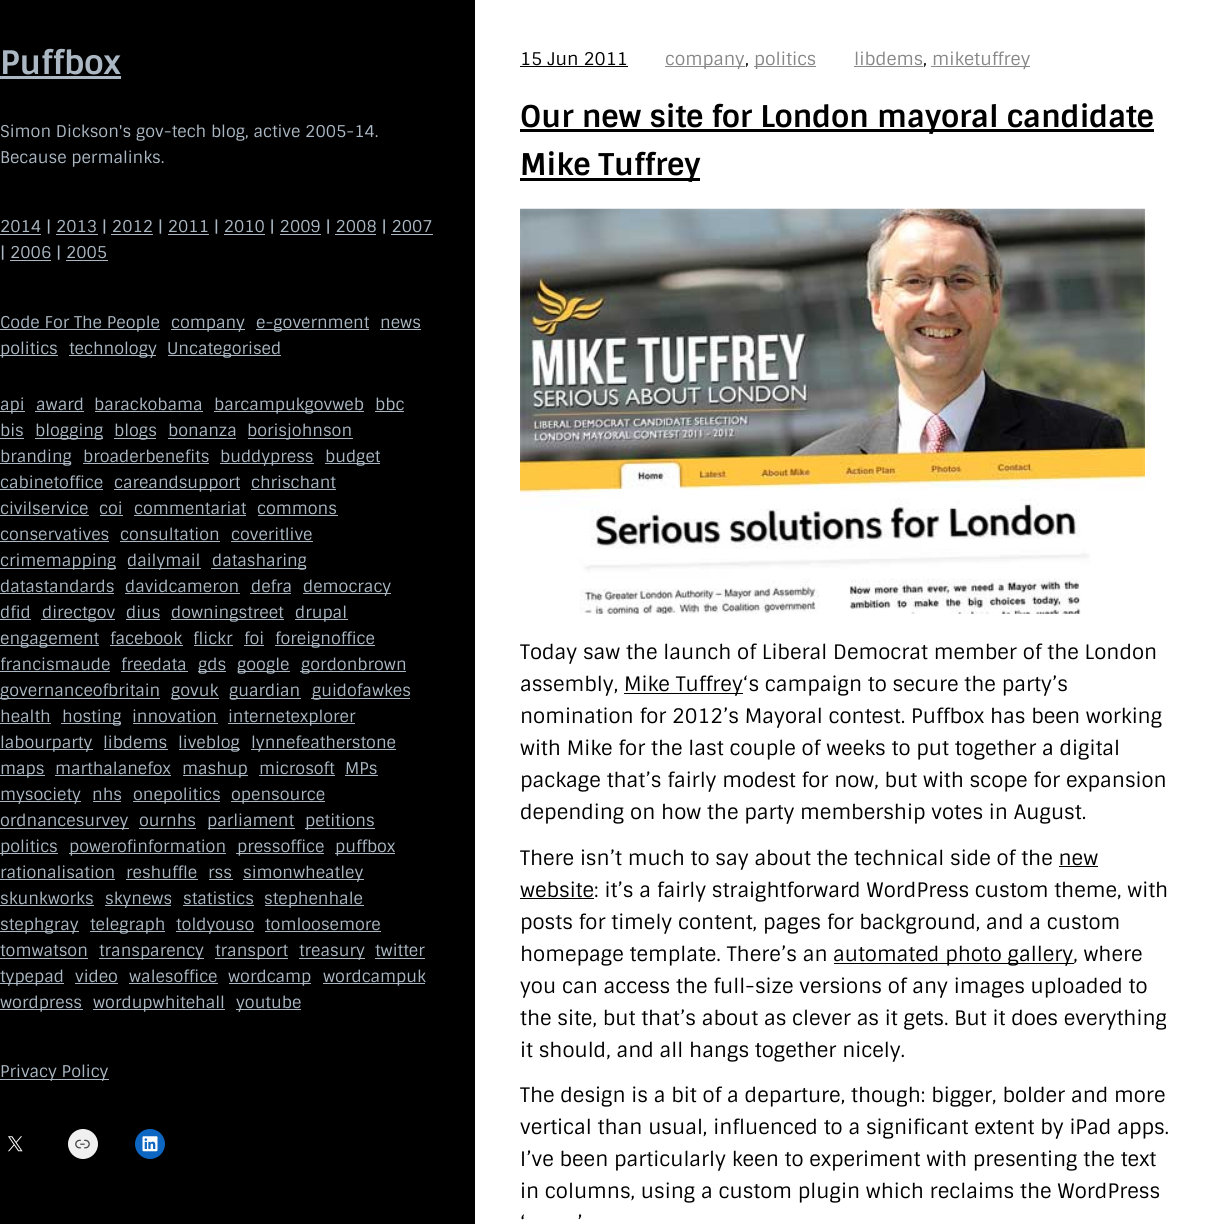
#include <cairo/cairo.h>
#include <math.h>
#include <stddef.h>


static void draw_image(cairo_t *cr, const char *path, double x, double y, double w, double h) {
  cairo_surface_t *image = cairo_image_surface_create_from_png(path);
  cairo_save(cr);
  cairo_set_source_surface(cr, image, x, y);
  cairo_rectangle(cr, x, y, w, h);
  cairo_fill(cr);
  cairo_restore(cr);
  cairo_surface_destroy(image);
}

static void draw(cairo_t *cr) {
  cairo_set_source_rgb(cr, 0, 0, 0);
  cairo_paint(cr);
  cairo_set_source_rgb(cr, 171 / 255.0, 184 / 255.0, 195 / 255.0);
  cairo_rectangle(cr, 0, 76, 121, 3);
  cairo_fill(cr);
  cairo_rectangle(cr, 0, 234, 41, 1);
  cairo_fill(cr);
  cairo_rectangle(cr, 56, 234, 42, 1);
  cairo_fill(cr);
  cairo_rectangle(cr, 111, 234, 42, 1);
  cairo_fill(cr);
  cairo_rectangle(cr, 168, 234, 41, 1);
  cairo_fill(cr);
  cairo_rectangle(cr, 224, 234, 41, 1);
  cairo_fill(cr);
  cairo_rectangle(cr, 280, 234, 41, 1);
  cairo_fill(cr);
  cairo_rectangle(cr, 335, 234, 41, 1);
  cairo_fill(cr);
  cairo_rectangle(cr, 391, 234, 42, 1);
  cairo_fill(cr);
  cairo_rectangle(cr, 10, 260, 41, 1);
  cairo_fill(cr);
  cairo_rectangle(cr, 66, 260, 42, 1);
  cairo_fill(cr);
  cairo_rectangle(cr, 0, 329, 160, 1);
  cairo_fill(cr);
  cairo_rectangle(cr, 171, 329, 74, 1);
  cairo_fill(cr);
  cairo_rectangle(cr, 256, 329, 113, 1);
  cairo_fill(cr);
  cairo_rectangle(cr, 380, 329, 41, 1);
  cairo_fill(cr);
  cairo_rectangle(cr, 0, 355, 58, 1);
  cairo_fill(cr);
  cairo_rectangle(cr, 69, 355, 87, 1);
  cairo_fill(cr);
  cairo_rectangle(cr, 168, 355, 113, 1);
  cairo_fill(cr);
  cairo_rectangle(cr, 0, 411, 25, 1);
  cairo_fill(cr);
  cairo_rectangle(cr, 35, 411, 49, 1);
  cairo_fill(cr);
  cairo_rectangle(cr, 95, 411, 108, 1);
  cairo_fill(cr);
  cairo_rectangle(cr, 214, 411, 150, 1);
  cairo_fill(cr);
  cairo_rectangle(cr, 375, 411, 29, 1);
  cairo_fill(cr);
  cairo_rectangle(cr, 0, 438, 24, 1);
  cairo_fill(cr);
  cairo_rectangle(cr, 35, 438, 68, 1);
  cairo_fill(cr);
  cairo_rectangle(cr, 114, 438, 42, 1);
  cairo_fill(cr);
  cairo_rectangle(cr, 168, 438, 68, 1);
  cairo_fill(cr);
  cairo_rectangle(cr, 248, 438, 105, 1);
  cairo_fill(cr);
  cairo_rectangle(cr, 0, 463, 71, 1);
  cairo_fill(cr);
  cairo_rectangle(cr, 83, 463, 126, 1);
  cairo_fill(cr);
  cairo_rectangle(cr, 220, 463, 94, 1);
  cairo_fill(cr);
  cairo_rectangle(cr, 325, 463, 55, 1);
  cairo_fill(cr);
  cairo_rectangle(cr, 0, 489, 103, 1);
  cairo_fill(cr);
  cairo_rectangle(cr, 114, 489, 126, 1);
  cairo_fill(cr);
  cairo_rectangle(cr, 251, 489, 85, 1);
  cairo_fill(cr);
  cairo_rectangle(cr, 0, 515, 89, 1);
  cairo_fill(cr);
  cairo_rectangle(cr, 100, 515, 23, 1);
  cairo_fill(cr);
  cairo_rectangle(cr, 134, 515, 112, 1);
  cairo_fill(cr);
  cairo_rectangle(cr, 258, 515, 80, 1);
  cairo_fill(cr);
  cairo_rectangle(cr, 0, 541, 109, 1);
  cairo_fill(cr);
  cairo_rectangle(cr, 120, 541, 100, 1);
  cairo_fill(cr);
  cairo_rectangle(cr, 231, 541, 82, 1);
  cairo_fill(cr);
  cairo_rectangle(cr, 0, 568, 116, 1);
  cairo_fill(cr);
  cairo_rectangle(cr, 128, 568, 73, 1);
  cairo_fill(cr);
  cairo_rectangle(cr, 211, 568, 95, 1);
  cairo_fill(cr);
  cairo_rectangle(cr, 0, 593, 114, 1);
  cairo_fill(cr);
  cairo_rectangle(cr, 125, 593, 115, 1);
  cairo_fill(cr);
  cairo_rectangle(cr, 250, 593, 41, 1);
  cairo_fill(cr);
  cairo_rectangle(cr, 303, 593, 88, 1);
  cairo_fill(cr);
  cairo_rectangle(cr, 0, 619, 31, 1);
  cairo_fill(cr);
  cairo_rectangle(cr, 41, 619, 74, 1);
  cairo_fill(cr);
  cairo_rectangle(cr, 126, 619, 34, 1);
  cairo_fill(cr);
  cairo_rectangle(cr, 171, 619, 113, 1);
  cairo_fill(cr);
  cairo_rectangle(cr, 295, 619, 53, 1);
  cairo_fill(cr);
  cairo_rectangle(cr, 0, 645, 99, 1);
  cairo_fill(cr);
  cairo_rectangle(cr, 110, 645, 73, 1);
  cairo_fill(cr);
  cairo_rectangle(cr, 194, 645, 39, 1);
  cairo_fill(cr);
  cairo_rectangle(cr, 244, 645, 20, 1);
  cairo_fill(cr);
  cairo_rectangle(cr, 275, 645, 100, 1);
  cairo_fill(cr);
  cairo_rectangle(cr, 0, 671, 110, 1);
  cairo_fill(cr);
  cairo_rectangle(cr, 121, 671, 67, 1);
  cairo_fill(cr);
  cairo_rectangle(cr, 198, 671, 28, 1);
  cairo_fill(cr);
  cairo_rectangle(cr, 238, 671, 52, 1);
  cairo_fill(cr);
  cairo_rectangle(cr, 300, 671, 106, 1);
  cairo_fill(cr);
  cairo_rectangle(cr, 0, 698, 160, 1);
  cairo_fill(cr);
  cairo_rectangle(cr, 171, 698, 48, 1);
  cairo_fill(cr);
  cairo_rectangle(cr, 230, 698, 71, 1);
  cairo_fill(cr);
  cairo_rectangle(cr, 311, 698, 99, 1);
  cairo_fill(cr);
  cairo_rectangle(cr, 0, 723, 51, 1);
  cairo_fill(cr);
  cairo_rectangle(cr, 61, 723, 60, 1);
  cairo_fill(cr);
  cairo_rectangle(cr, 133, 723, 85, 1);
  cairo_fill(cr);
  cairo_rectangle(cr, 228, 723, 127, 1);
  cairo_fill(cr);
  cairo_rectangle(cr, 0, 749, 93, 1);
  cairo_fill(cr);
  cairo_rectangle(cr, 104, 749, 64, 1);
  cairo_fill(cr);
  cairo_rectangle(cr, 179, 749, 61, 1);
  cairo_fill(cr);
  cairo_rectangle(cr, 251, 749, 145, 1);
  cairo_fill(cr);
  cairo_rectangle(cr, 0, 775, 45, 1);
  cairo_fill(cr);
  cairo_rectangle(cr, 55, 775, 116, 1);
  cairo_fill(cr);
  cairo_rectangle(cr, 183, 775, 65, 1);
  cairo_fill(cr);
  cairo_rectangle(cr, 259, 775, 76, 1);
  cairo_fill(cr);
  cairo_rectangle(cr, 345, 775, 33, 1);
  cairo_fill(cr);
  cairo_rectangle(cr, 0, 801, 81, 1);
  cairo_fill(cr);
  cairo_rectangle(cr, 93, 801, 28, 1);
  cairo_fill(cr);
  cairo_rectangle(cr, 133, 801, 87, 1);
  cairo_fill(cr);
  cairo_rectangle(cr, 231, 801, 94, 1);
  cairo_fill(cr);
  cairo_rectangle(cr, 0, 828, 129, 1);
  cairo_fill(cr);
  cairo_rectangle(cr, 139, 828, 57, 1);
  cairo_fill(cr);
  cairo_rectangle(cr, 208, 828, 87, 1);
  cairo_fill(cr);
  cairo_rectangle(cr, 305, 828, 70, 1);
  cairo_fill(cr);
  cairo_rectangle(cr, 0, 853, 58, 1);
  cairo_fill(cr);
  cairo_rectangle(cr, 69, 853, 157, 1);
  cairo_fill(cr);
  cairo_rectangle(cr, 236, 853, 88, 1);
  cairo_fill(cr);
  cairo_rectangle(cr, 335, 853, 60, 1);
  cairo_fill(cr);
  cairo_rectangle(cr, 0, 879, 115, 1);
  cairo_fill(cr);
  cairo_rectangle(cr, 126, 879, 72, 1);
  cairo_fill(cr);
  cairo_rectangle(cr, 209, 879, 24, 1);
  cairo_fill(cr);
  cairo_rectangle(cr, 243, 879, 121, 1);
  cairo_fill(cr);
  cairo_rectangle(cr, 0, 905, 94, 1);
  cairo_fill(cr);
  cairo_rectangle(cr, 105, 905, 66, 1);
  cairo_fill(cr);
  cairo_rectangle(cr, 183, 905, 71, 1);
  cairo_fill(cr);
  cairo_rectangle(cr, 265, 905, 99, 1);
  cairo_fill(cr);
  cairo_rectangle(cr, 0, 931, 79, 1);
  cairo_fill(cr);
  cairo_rectangle(cr, 90, 931, 75, 1);
  cairo_fill(cr);
  cairo_rectangle(cr, 176, 931, 78, 1);
  cairo_fill(cr);
  cairo_rectangle(cr, 265, 931, 116, 1);
  cairo_fill(cr);
  cairo_rectangle(cr, 0, 958, 88, 1);
  cairo_fill(cr);
  cairo_rectangle(cr, 99, 958, 105, 1);
  cairo_fill(cr);
  cairo_rectangle(cr, 215, 958, 73, 1);
  cairo_fill(cr);
  cairo_rectangle(cr, 299, 958, 66, 1);
  cairo_fill(cr);
  cairo_rectangle(cr, 375, 958, 50, 1);
  cairo_fill(cr);
  cairo_rectangle(cr, 0, 983, 64, 1);
  cairo_fill(cr);
  cairo_rectangle(cr, 75, 983, 43, 1);
  cairo_fill(cr);
  cairo_rectangle(cr, 129, 983, 89, 1);
  cairo_fill(cr);
  cairo_rectangle(cr, 229, 983, 82, 1);
  cairo_fill(cr);
  cairo_rectangle(cr, 323, 983, 102, 1);
  cairo_fill(cr);
  cairo_rectangle(cr, 0, 1009, 83, 1);
  cairo_fill(cr);
  cairo_rectangle(cr, 93, 1009, 132, 1);
  cairo_fill(cr);
  cairo_rectangle(cr, 236, 1009, 65, 1);
  cairo_fill(cr);
  cairo_rectangle(cr, 0, 1079, 109, 1);
  cairo_fill(cr);
  draw_image(cr, "images/1.png", 8, 1136, 15, 16);
  cairo_set_source_rgb(cr, 240 / 255.0, 240 / 255.0, 240 / 255.0);
  cairo_arc(cr, 83, 1144, 15, 0, 2 * M_PI);
  cairo_fill(cr);
  draw_image(cr, "images/2.png", 75, 1139, 15, 10);
  cairo_set_source_rgb(cr, 13 / 255.0, 102 / 255.0, 194 / 255.0);
  cairo_arc(cr, 150, 1144, 15, 0, 2 * M_PI);
  cairo_fill(cr);
  draw_image(cr, "images/3.png", 142, 1136, 16, 16);
  cairo_set_source_rgb(cr, 1, 1, 1);
  cairo_rectangle(cr, 475, 0, 749, 1224);
  cairo_fill(cr);
  cairo_set_source_rgb(cr, 0, 0, 0);
  cairo_rectangle(cr, 520, 66, 108, 1);
  cairo_fill(cr);
  cairo_set_source_rgb(cr, 136 / 255.0, 136 / 255.0, 136 / 255.0);
  cairo_rectangle(cr, 665, 66, 80, 1);
  cairo_fill(cr);
  cairo_rectangle(cr, 754, 66, 62, 1);
  cairo_fill(cr);
  cairo_rectangle(cr, 854, 66, 69, 1);
  cairo_fill(cr);
  cairo_rectangle(cr, 931, 66, 99, 1);
  cairo_fill(cr);
  cairo_set_source_rgb(cr, 0, 0, 0);
  cairo_rectangle(cr, 520, 129, 634, 3);
  cairo_fill(cr);
  cairo_rectangle(cr, 520, 178, 180, 3);
  cairo_fill(cr);
  draw_image(cr, "images/4.png", 520, 208, 625, 406);
  cairo_rectangle(cr, 624, 693, 119, 1);
  cairo_fill(cr);
  cairo_rectangle(cr, 1059, 866, 39, 1);
  cairo_fill(cr);
  cairo_rectangle(cr, 520, 898, 74, 1);
  cairo_fill(cr);
  cairo_rectangle(cr, 834, 963, 240, 1);
  cairo_fill(cr);
  cairo_select_font_face(cr, "Sintony", CAIRO_FONT_SLANT_NORMAL, CAIRO_FONT_WEIGHT_BOLD);
  cairo_set_font_size(cr, 32.5);
  cairo_set_source_rgb(cr, 171 / 255.0, 184 / 255.0, 195 / 255.0);
  cairo_move_to(cr, 0, 74);
  cairo_show_text(cr, "Puffbox");
  cairo_select_font_face(cr, "Sintony", CAIRO_FONT_SLANT_NORMAL, CAIRO_FONT_WEIGHT_NORMAL);
  cairo_set_font_size(cr, 16.25);
  cairo_move_to(cr, 0, 137);
  cairo_show_text(cr, "Simon Dickson's gov-tech blog, active 2005-14.");
  cairo_move_to(cr, 0, 163);
  cairo_show_text(cr, "Because permalinks.");
  cairo_move_to(cr, 0, 232);
  cairo_show_text(cr, "2014 | 2013 | 2012 | 2011 | 2010 | 2009 | 2008 | 2007");
  cairo_move_to(cr, 0, 258);
  cairo_show_text(cr, "| 2006 | 2005");
  cairo_move_to(cr, 0, 328);
  cairo_show_text(cr, "Code For The People");
  cairo_move_to(cr, 171, 328);
  cairo_show_text(cr, "company");
  cairo_move_to(cr, 256, 328);
  cairo_show_text(cr, "e-government");
  cairo_move_to(cr, 380, 328);
  cairo_show_text(cr, "news");
  cairo_move_to(cr, 0, 354);
  cairo_show_text(cr, "politics");
  cairo_move_to(cr, 69, 354);
  cairo_show_text(cr, "technology");
  cairo_move_to(cr, 167, 354);
  cairo_show_text(cr, "Uncategorised");
  cairo_move_to(cr, 0, 410);
  cairo_show_text(cr, "api");
  cairo_move_to(cr, 36, 410);
  cairo_show_text(cr, "award");
  cairo_move_to(cr, 94, 410);
  cairo_show_text(cr, "barackobama");
  cairo_move_to(cr, 214, 410);
  cairo_show_text(cr, "barcampukgovweb");
  cairo_move_to(cr, 375, 410);
  cairo_show_text(cr, "bbc");
  cairo_move_to(cr, 0, 436);
  cairo_show_text(cr, "bis");
  cairo_move_to(cr, 35, 436);
  cairo_show_text(cr, "blogging");
  cairo_move_to(cr, 114, 436);
  cairo_show_text(cr, "blogs");
  cairo_move_to(cr, 168, 436);
  cairo_show_text(cr, "bonanza");
  cairo_move_to(cr, 247, 436);
  cairo_show_text(cr, "borisjohnson");
  cairo_move_to(cr, 0, 462);
  cairo_show_text(cr, "branding");
  cairo_move_to(cr, 83, 462);
  cairo_show_text(cr, "broaderbenefits");
  cairo_move_to(cr, 220, 462);
  cairo_show_text(cr, "buddypress");
  cairo_move_to(cr, 325, 462);
  cairo_show_text(cr, "budget");
  cairo_move_to(cr, 0, 488);
  cairo_show_text(cr, "cabinetoffice");
  cairo_move_to(cr, 114, 488);
  cairo_show_text(cr, "careandsupport");
  cairo_move_to(cr, 251, 488);
  cairo_show_text(cr, "chrischant");
  cairo_move_to(cr, 0, 514);
  cairo_show_text(cr, "civilservice");
  cairo_move_to(cr, 99, 514);
  cairo_show_text(cr, "coi");
  cairo_move_to(cr, 134, 514);
  cairo_show_text(cr, "commentariat");
  cairo_move_to(cr, 257, 514);
  cairo_show_text(cr, "commons");
  cairo_move_to(cr, 0, 540);
  cairo_show_text(cr, "conservatives");
  cairo_move_to(cr, 120, 540);
  cairo_show_text(cr, "consultation");
  cairo_move_to(cr, 231, 540);
  cairo_show_text(cr, "coveritlive");
  cairo_move_to(cr, 0, 566);
  cairo_show_text(cr, "crimemapping");
  cairo_move_to(cr, 127, 566);
  cairo_show_text(cr, "dailymail");
  cairo_move_to(cr, 212, 566);
  cairo_show_text(cr, "datasharing");
  cairo_move_to(cr, 0, 592);
  cairo_show_text(cr, "datastandards");
  cairo_move_to(cr, 125, 592);
  cairo_show_text(cr, "davidcameron");
  cairo_move_to(cr, 251, 592);
  cairo_show_text(cr, "defra");
  cairo_move_to(cr, 303, 592);
  cairo_show_text(cr, "democracy");
  cairo_move_to(cr, 0, 618);
  cairo_show_text(cr, "dfid");
  cairo_move_to(cr, 42, 618);
  cairo_show_text(cr, "directgov");
  cairo_move_to(cr, 126, 618);
  cairo_show_text(cr, "dius");
  cairo_move_to(cr, 171, 618);
  cairo_show_text(cr, "downingstreet");
  cairo_move_to(cr, 295, 618);
  cairo_show_text(cr, "drupal");
  cairo_move_to(cr, 0, 644);
  cairo_show_text(cr, "engagement");
  cairo_move_to(cr, 110, 644);
  cairo_show_text(cr, "facebook");
  cairo_move_to(cr, 193, 644);
  cairo_show_text(cr, "flickr");
  cairo_move_to(cr, 244, 644);
  cairo_show_text(cr, "foi");
  cairo_move_to(cr, 275, 644);
  cairo_show_text(cr, "foreignoffice");
  cairo_move_to(cr, 0, 670);
  cairo_show_text(cr, "francismaude");
  cairo_move_to(cr, 121, 670);
  cairo_show_text(cr, "freedata");
  cairo_move_to(cr, 198, 670);
  cairo_show_text(cr, "gds");
  cairo_move_to(cr, 237, 670);
  cairo_show_text(cr, "google");
  cairo_move_to(cr, 301, 670);
  cairo_show_text(cr, "gordonbrown");
  cairo_move_to(cr, 0, 696);
  cairo_show_text(cr, "governanceofbritain");
  cairo_move_to(cr, 171, 696);
  cairo_show_text(cr, "govuk");
  cairo_move_to(cr, 229, 696);
  cairo_show_text(cr, "guardian");
  cairo_move_to(cr, 312, 696);
  cairo_show_text(cr, "guidofawkes");
  cairo_move_to(cr, 0, 722);
  cairo_show_text(cr, "health");
  cairo_move_to(cr, 62, 722);
  cairo_show_text(cr, "hosting");
  cairo_move_to(cr, 132, 722);
  cairo_show_text(cr, "innovation");
  cairo_move_to(cr, 228, 722);
  cairo_show_text(cr, "internetexplorer");
  cairo_move_to(cr, 0, 748);
  cairo_show_text(cr, "labourparty");
  cairo_move_to(cr, 103, 748);
  cairo_show_text(cr, "libdems");
  cairo_move_to(cr, 178, 748);
  cairo_show_text(cr, "liveblog");
  cairo_move_to(cr, 251, 748);
  cairo_show_text(cr, "lynnefeatherstone");
  cairo_move_to(cr, 0, 774);
  cairo_show_text(cr, "maps");
  cairo_move_to(cr, 55, 774);
  cairo_show_text(cr, "marthalanefox");
  cairo_move_to(cr, 182, 774);
  cairo_show_text(cr, "mashup");
  cairo_move_to(cr, 259, 774);
  cairo_show_text(cr, "microsoft");
  cairo_move_to(cr, 345, 774);
  cairo_show_text(cr, "MPs");
  cairo_move_to(cr, 0, 800);
  cairo_show_text(cr, "mysociety");
  cairo_move_to(cr, 92, 800);
  cairo_show_text(cr, "nhs");
  cairo_move_to(cr, 133, 800);
  cairo_show_text(cr, "onepolitics");
  cairo_move_to(cr, 231, 800);
  cairo_show_text(cr, "opensource");
  cairo_move_to(cr, 0, 826);
  cairo_show_text(cr, "ordnancesurvey");
  cairo_move_to(cr, 139, 826);
  cairo_show_text(cr, "ournhs");
  cairo_move_to(cr, 207, 826);
  cairo_show_text(cr, "parliament");
  cairo_move_to(cr, 305, 826);
  cairo_show_text(cr, "petitions");
  cairo_move_to(cr, 0, 852);
  cairo_show_text(cr, "politics");
  cairo_move_to(cr, 69, 852);
  cairo_show_text(cr, "powerofinformation");
  cairo_move_to(cr, 237, 852);
  cairo_show_text(cr, "pressoffice");
  cairo_move_to(cr, 335, 852);
  cairo_show_text(cr, "puffbox");
  cairo_move_to(cr, 0, 878);
  cairo_show_text(cr, "rationalisation");
  cairo_move_to(cr, 126, 878);
  cairo_show_text(cr, "reshuffle");
  cairo_move_to(cr, 208, 878);
  cairo_show_text(cr, "rss");
  cairo_move_to(cr, 243, 878);
  cairo_show_text(cr, "simonwheatley");
  cairo_move_to(cr, 0, 904);
  cairo_show_text(cr, "skunkworks");
  cairo_move_to(cr, 105, 904);
  cairo_show_text(cr, "skynews");
  cairo_move_to(cr, 183, 904);
  cairo_show_text(cr, "statistics");
  cairo_move_to(cr, 264, 904);
  cairo_show_text(cr, "stephenhale");
  cairo_move_to(cr, 0, 930);
  cairo_show_text(cr, "stephgray");
  cairo_move_to(cr, 90, 930);
  cairo_show_text(cr, "telegraph");
  cairo_move_to(cr, 176, 930);
  cairo_show_text(cr, "toldyouso");
  cairo_move_to(cr, 265, 930);
  cairo_show_text(cr, "tomloosemore");
  cairo_move_to(cr, 0, 956);
  cairo_show_text(cr, "tomwatson");
  cairo_move_to(cr, 99, 956);
  cairo_show_text(cr, "transparency");
  cairo_move_to(cr, 215, 956);
  cairo_show_text(cr, "transport");
  cairo_move_to(cr, 299, 956);
  cairo_show_text(cr, "treasury");
  cairo_move_to(cr, 375, 956);
  cairo_show_text(cr, "twitter");
  cairo_move_to(cr, 0, 982);
  cairo_show_text(cr, "typepad");
  cairo_move_to(cr, 75, 982);
  cairo_show_text(cr, "video");
  cairo_move_to(cr, 129, 982);
  cairo_show_text(cr, "walesoffice");
  cairo_move_to(cr, 228, 982);
  cairo_show_text(cr, "wordcamp");
  cairo_move_to(cr, 323, 982);
  cairo_show_text(cr, "wordcampuk");
  cairo_move_to(cr, 0, 1008);
  cairo_show_text(cr, "wordpress");
  cairo_move_to(cr, 93, 1008);
  cairo_show_text(cr, "wordupwhitehall");
  cairo_move_to(cr, 236, 1008);
  cairo_show_text(cr, "youtube");
  cairo_move_to(cr, 0, 1077);
  cairo_show_text(cr, "Privacy Policy");
  cairo_set_font_size(cr, 17.5);
  cairo_set_source_rgb(cr, 0, 0, 0);
  cairo_move_to(cr, 520, 65);
  cairo_show_text(cr, "15 Jun 2011");
  cairo_set_source_rgb(cr, 136 / 255.0, 136 / 255.0, 136 / 255.0);
  cairo_move_to(cr, 665, 65);
  cairo_show_text(cr, "company");
  cairo_set_source_rgb(cr, 0, 0, 0);
  cairo_move_to(cr, 745, 65);
  cairo_show_text(cr, ",");
  cairo_set_source_rgb(cr, 136 / 255.0, 136 / 255.0, 136 / 255.0);
  cairo_move_to(cr, 754, 65);
  cairo_show_text(cr, "politics");
  cairo_move_to(cr, 854, 65);
  cairo_show_text(cr, "libdems");
  cairo_set_source_rgb(cr, 0, 0, 0);
  cairo_move_to(cr, 923, 65);
  cairo_show_text(cr, ",");
  cairo_set_source_rgb(cr, 136 / 255.0, 136 / 255.0, 136 / 255.0);
  cairo_move_to(cr, 932, 65);
  cairo_show_text(cr, "miketuffrey");
  cairo_select_font_face(cr, "Sintony", CAIRO_FONT_SLANT_NORMAL, CAIRO_FONT_WEIGHT_BOLD);
  cairo_set_font_size(cr, 30);
  cairo_set_source_rgb(cr, 0, 0, 0);
  cairo_move_to(cr, 520, 127);
  cairo_show_text(cr, "Our new site for London mayoral candidate");
  cairo_move_to(cr, 520, 175);
  cairo_show_text(cr, "Mike Tuffrey");
  cairo_select_font_face(cr, "Sintony", CAIRO_FONT_SLANT_NORMAL, CAIRO_FONT_WEIGHT_NORMAL);
  cairo_set_font_size(cr, 20);
  cairo_move_to(cr, 520, 659);
  cairo_show_text(cr, "Today saw the launch of Liberal Democrat member of the London");
  cairo_move_to(cr, 520, 691);
  cairo_show_text(cr, "assembly,");
  cairo_move_to(cr, 624, 691);
  cairo_show_text(cr, "Mike Tuffrey‘s campaign to secure the party’s");
  cairo_move_to(cr, 520, 723);
  cairo_show_text(cr, "nomination for 2012’s Mayoral contest. Puffbox has been working");
  cairo_move_to(cr, 520, 755);
  cairo_show_text(cr, "with Mike for the last couple of weeks to put together a digital");
  cairo_move_to(cr, 520, 787);
  cairo_show_text(cr, "package that’s fairly modest for now, but with scope for expansion");
  cairo_move_to(cr, 520, 819);
  cairo_show_text(cr, "depending on how the party membership votes in August.");
  cairo_move_to(cr, 520, 865);
  cairo_show_text(cr, "There isn’t much to say about the technical side of the new");
  cairo_move_to(cr, 520, 897);
  cairo_show_text(cr, "website: it’s a fairly straightforward WordPress custom theme, with");
  cairo_move_to(cr, 520, 929);
  cairo_show_text(cr, "posts for timely content, pages for background, and a custom");
  cairo_move_to(cr, 520, 961);
  cairo_show_text(cr, "homepage template. There’s an");
  cairo_move_to(cr, 833, 961);
  cairo_show_text(cr, "automated photo gallery, where");
  cairo_move_to(cr, 520, 993);
  cairo_show_text(cr, "you can access the full-size versions of any images uploaded to");
  cairo_move_to(cr, 520, 1025);
  cairo_show_text(cr, "the site, but that’s about as clever as it gets. But it does everything");
  cairo_move_to(cr, 520, 1057);
  cairo_show_text(cr, "it should, and all hangs together nicely.");
  cairo_move_to(cr, 520, 1102);
  cairo_show_text(cr, "The design is a bit of a departure, though: bigger, bolder and more");
  cairo_move_to(cr, 520, 1134);
  cairo_show_text(cr, "vertical than usual, influenced to a significant extent by iPad apps.");
  cairo_move_to(cr, 520, 1166);
  cairo_show_text(cr, "I’ve been particularly keen to experiment with presenting the text");
  cairo_move_to(cr, 520, 1198);
  cairo_show_text(cr, "in columns, using a custom plugin which reclaims the WordPress");
  cairo_move_to(cr, 520, 1230);
  cairo_show_text(cr, "‘");
  cairo_move_to(cr, 577, 1230);
  cairo_show_text(cr, "’");
}

int main(void) {
  cairo_surface_t *surface = cairo_image_surface_create(CAIRO_FORMAT_RGB24, 1224, 1224);
  cairo_t *cr = cairo_create(surface);
  cairo_font_options_t *options = cairo_font_options_create();
  cairo_font_options_set_hint_metrics(options, CAIRO_HINT_METRICS_OFF);
  cairo_font_options_set_hint_style(options, CAIRO_HINT_STYLE_NONE);
  cairo_set_font_options(cr, options);
  cairo_set_miter_limit(cr, 4);
  draw(cr);
  cairo_surface_write_to_png(surface, "out.png");
  cairo_font_options_destroy(options);
  cairo_destroy(cr);
  cairo_surface_destroy(surface);
  return 0;
}
